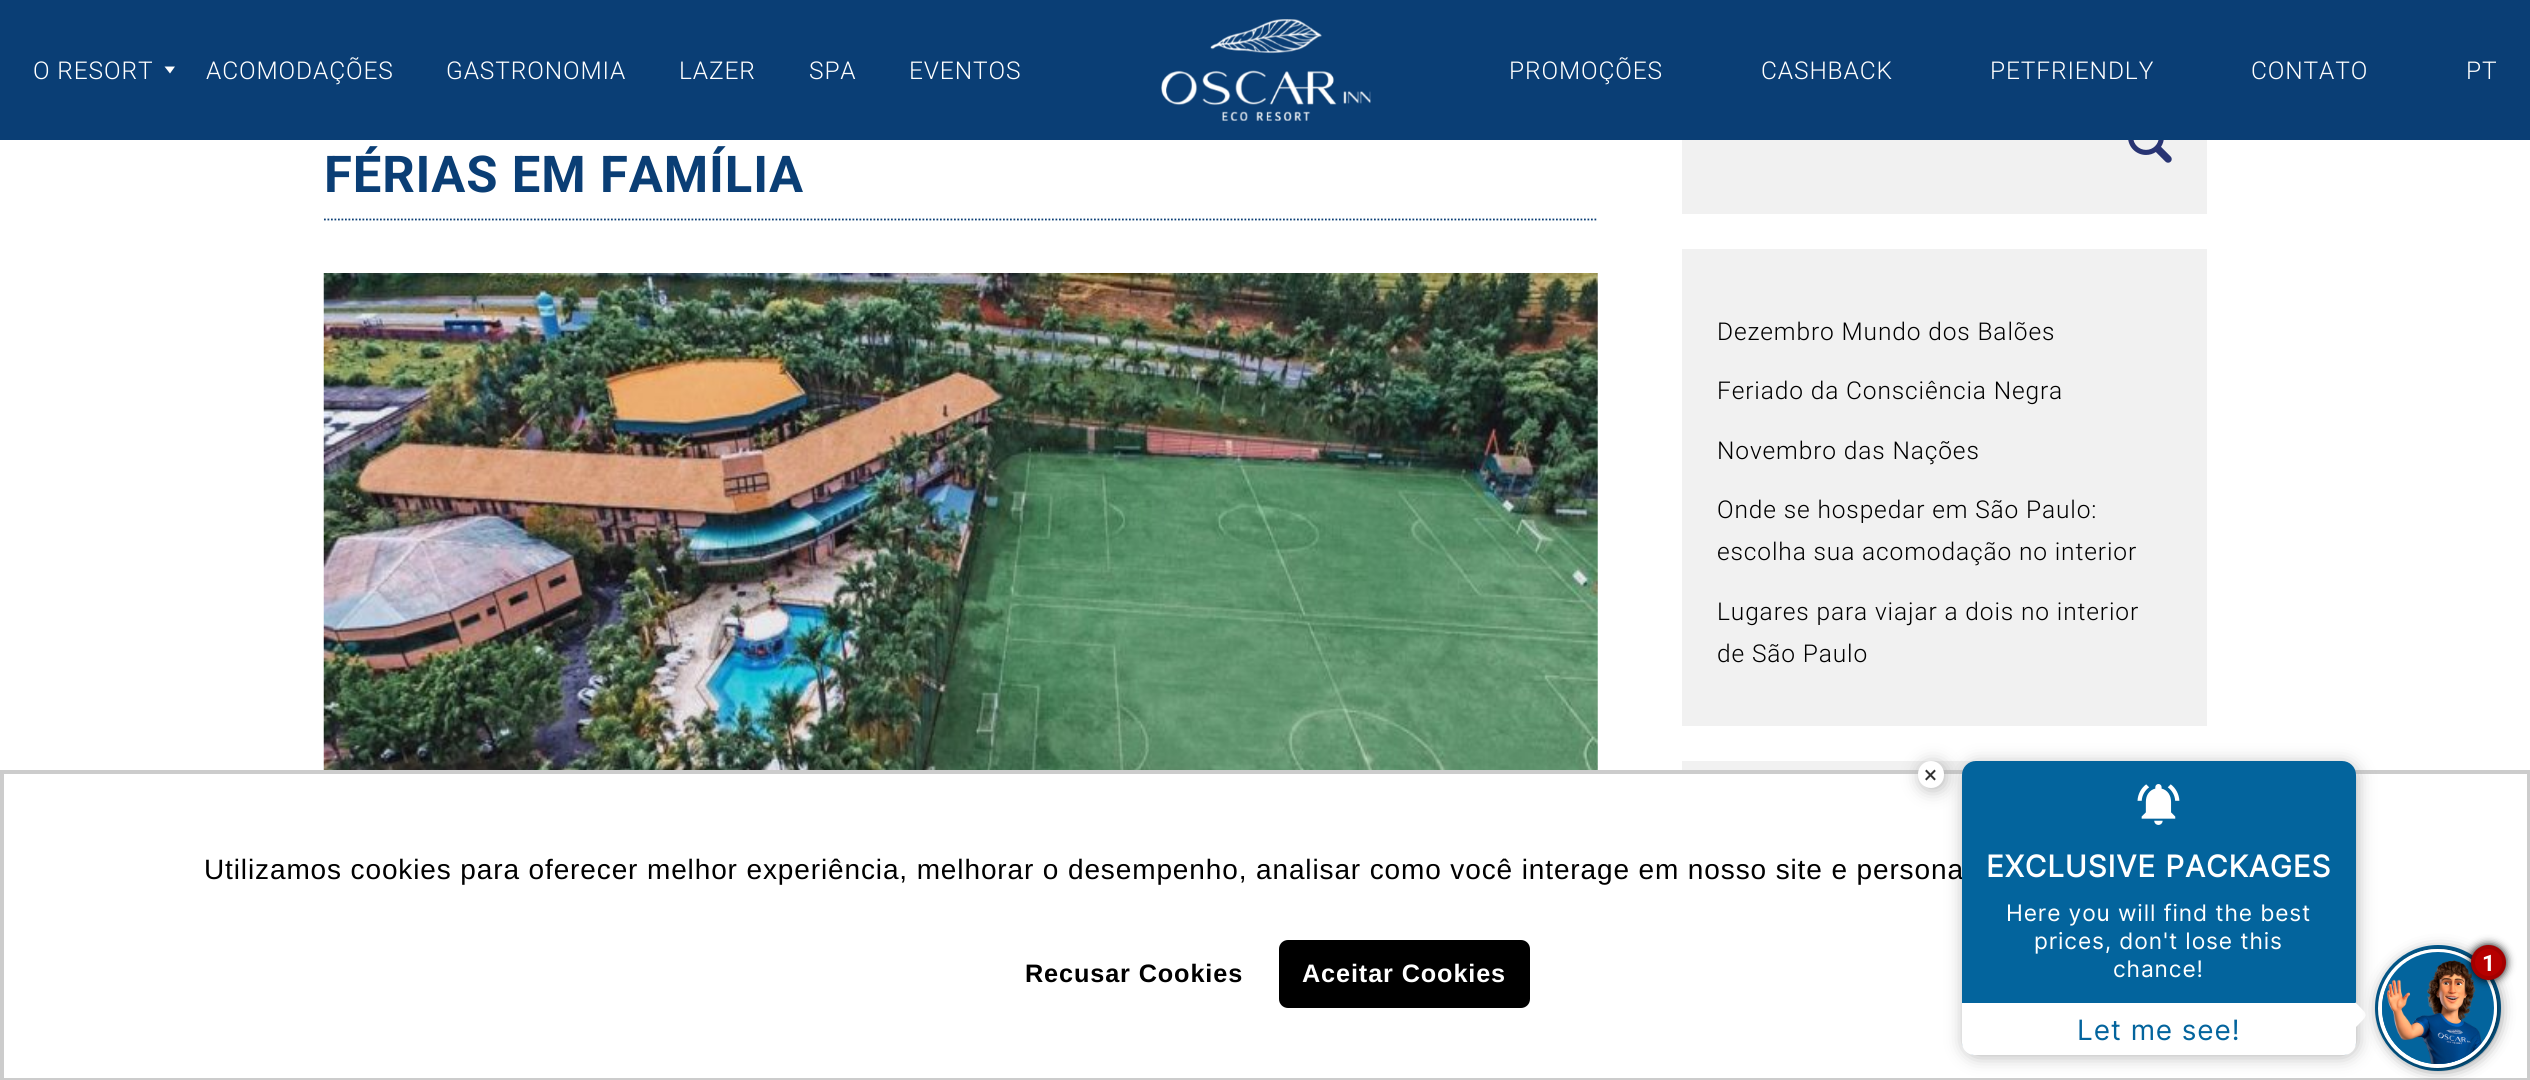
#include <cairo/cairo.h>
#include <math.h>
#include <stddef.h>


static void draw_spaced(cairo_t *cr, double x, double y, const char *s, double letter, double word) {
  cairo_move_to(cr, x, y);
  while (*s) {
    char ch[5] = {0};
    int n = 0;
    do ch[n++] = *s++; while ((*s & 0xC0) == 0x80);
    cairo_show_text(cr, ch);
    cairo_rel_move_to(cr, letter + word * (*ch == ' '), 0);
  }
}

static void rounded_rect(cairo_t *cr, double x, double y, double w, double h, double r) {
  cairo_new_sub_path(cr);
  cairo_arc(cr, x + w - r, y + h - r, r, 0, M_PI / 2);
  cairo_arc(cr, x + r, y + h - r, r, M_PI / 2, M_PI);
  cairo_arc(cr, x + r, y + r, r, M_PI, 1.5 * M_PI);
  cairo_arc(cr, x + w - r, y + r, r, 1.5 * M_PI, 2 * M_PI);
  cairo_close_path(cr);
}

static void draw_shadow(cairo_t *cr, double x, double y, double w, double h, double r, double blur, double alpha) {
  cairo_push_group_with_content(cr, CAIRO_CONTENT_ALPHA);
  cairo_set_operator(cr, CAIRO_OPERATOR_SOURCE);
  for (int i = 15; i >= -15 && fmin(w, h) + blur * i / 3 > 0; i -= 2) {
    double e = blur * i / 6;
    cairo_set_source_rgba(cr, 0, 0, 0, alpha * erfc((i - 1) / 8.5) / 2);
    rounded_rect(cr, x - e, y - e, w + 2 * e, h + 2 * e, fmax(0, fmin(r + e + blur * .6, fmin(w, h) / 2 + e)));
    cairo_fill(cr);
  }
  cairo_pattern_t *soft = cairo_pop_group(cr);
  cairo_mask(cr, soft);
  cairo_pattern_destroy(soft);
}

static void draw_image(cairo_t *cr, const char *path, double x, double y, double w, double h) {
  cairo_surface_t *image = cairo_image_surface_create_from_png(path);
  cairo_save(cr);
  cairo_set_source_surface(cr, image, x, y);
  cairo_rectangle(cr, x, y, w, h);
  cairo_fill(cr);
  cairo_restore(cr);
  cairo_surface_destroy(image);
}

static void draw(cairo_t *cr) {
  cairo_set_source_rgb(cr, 1, 1, 1);
  cairo_paint(cr);
  cairo_set_source_rgb(cr, 10 / 255.0, 62 / 255.0, 117 / 255.0);
  cairo_rectangle(cr, 0, 0, 2530, 140);
  cairo_fill(cr);
  cairo_set_source_rgb(cr, 1, 1, 1);
  cairo_new_path(cr);
  cairo_move_to(cr, 164.5, 66.5);
  cairo_line_to(cr, 175, 66.5);
  cairo_line_to(cr, 170, 73.5);
  cairo_close_path(cr);
  cairo_fill(cr);
  draw_image(cr, "images/1.png", 1161, 19, 210, 102);
  cairo_new_path(cr);
  cairo_move_to(cr, 324, 219.5);
  cairo_line_to(cr, 1598, 219.5);
  cairo_set_source_rgb(cr, 10 / 255.0, 62 / 255.0, 117 / 255.0);
  cairo_set_line_width(cr, 1.8);
  cairo_set_dash(cr, (double[]){1.75, 1.75}, 2, 0);
  cairo_stroke(cr);
  draw_image(cr, "images/2.png", 323, 273, 1275, 497);
  cairo_set_source_rgb(cr, 241 / 255.0, 241 / 255.0, 241 / 255.0);
  cairo_rectangle(cr, 1682, 140, 525, 74);
  cairo_fill(cr);
  draw_image(cr, "images/3.png", 2128, 140, 44, 23);
  cairo_rectangle(cr, 1682, 249, 525, 477);
  cairo_fill(cr);
  cairo_rectangle(cr, 1682, 761, 294, 9);
  cairo_fill(cr);
  cairo_rectangle(cr, 2, 772, 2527, 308);
  cairo_set_source_rgb(cr, 204 / 255.0, 204 / 255.0, 204 / 255.0);
  cairo_set_line_width(cr, 4);
  cairo_set_dash(cr, NULL, 0, 0);
  cairo_stroke(cr);
  cairo_set_source_rgb(cr, 0, 0, 0);
  rounded_rect(cr, 1279, 940, 251, 68, 9);
  cairo_fill(cr);
  cairo_set_source_rgb(cr, 170 / 255.0, 170 / 255.0, 170 / 255.0);
  draw_shadow(cr, 1965, 765, 391, 290, 12, 9, 1);
  cairo_arc(cr, 2438, 1008, 61, 0, 2 * M_PI);
  cairo_set_source_rgb(cr, 3 / 255.0, 100 / 255.0, 157 / 255.0);
  cairo_stroke(cr);
  cairo_select_font_face(cr, "Roboto Light", CAIRO_FONT_SLANT_NORMAL, CAIRO_FONT_WEIGHT_NORMAL);
  cairo_set_font_size(cr, 24.5);
  cairo_set_source_rgb(cr, 1, 1, 1);
  draw_spaced(cr, 33, 79, "O RESORT", 0.88, 0);
  draw_spaced(cr, 206, 79, "ACOMODAÇÕES", 0.88, 0);
  draw_spaced(cr, 446, 79, "GASTRONOMIA", 0.88, 0);
  draw_spaced(cr, 679, 79, "LAZER", 0.88, 0);
  draw_spaced(cr, 809, 79, "SPA", 0.88, 0);
  draw_spaced(cr, 909, 79, "EVENTOS", 0.88, 0);
  draw_spaced(cr, 1509, 79, "PROMOÇÕES", 0.88, 0);
  draw_spaced(cr, 1761, 79, "CASHBACK", 0.88, 0);
  draw_spaced(cr, 1990, 79, "PETFRIENDLY", 0.88, 0);
  draw_spaced(cr, 2251, 79, "CONTATO", 0.88, 0);
  draw_spaced(cr, 2466, 79, "PT", 0.88, 0);
  cairo_select_font_face(cr, "Roboto", CAIRO_FONT_SLANT_NORMAL, CAIRO_FONT_WEIGHT_BOLD);
  cairo_set_font_size(cr, 50.75);
  cairo_set_source_rgb(cr, 10 / 255.0, 62 / 255.0, 117 / 255.0);
  draw_spaced(cr, 324, 192, "FÉRIAS EM FAMÍLIA", 0.88, 0);
  cairo_select_font_face(cr, "Roboto Light", CAIRO_FONT_SLANT_NORMAL, CAIRO_FONT_WEIGHT_NORMAL);
  cairo_set_font_size(cr, 24.5);
  cairo_set_source_rgb(cr, 0, 0, 0);
  draw_spaced(cr, 1717, 340, "Dezembro Mundo dos Balões", 0.88, 0);
  draw_spaced(cr, 1717, 399, "Feriado da Consciência Negra", 0.88, 0);
  draw_spaced(cr, 1717, 459, "Novembro das Nações", 0.88, 0);
  draw_spaced(cr, 1717, 518, "Onde se hospedar em São Paulo:", 0.88, 0);
  draw_spaced(cr, 1717, 560, "escolha sua acomodação no interior", 0.88, 0);
  draw_spaced(cr, 1717, 620, "Lugares para viajar a dois no interior", 0.88, 0);
  draw_spaced(cr, 1717, 662, "de São Paulo", 0.88, 0);
  cairo_select_font_face(cr, "Liberation Sans", CAIRO_FONT_SLANT_NORMAL, CAIRO_FONT_WEIGHT_NORMAL);
  cairo_set_font_size(cr, 28);
  draw_spaced(cr, 204, 879, "Utilizamos cookies para oferecer melhor experiência, melhorar o desempenho, analisar como você interage em nosso site e persona", 0.88, 0);
  cairo_select_font_face(cr, "Liberation Sans", CAIRO_FONT_SLANT_NORMAL, CAIRO_FONT_WEIGHT_BOLD);
  cairo_set_font_size(cr, 25.25);
  draw_spaced(cr, 1025, 982, "Recusar Cookies", 0.88, 0);
  cairo_set_source_rgb(cr, 1, 1, 1);
  draw_spaced(cr, 1302, 982, "Aceitar Cookies", 0.88, 0);
  cairo_set_source_rgb(cr, 3 / 255.0, 100 / 255.0, 157 / 255.0);
  rounded_rect(cr, 1962, 761, 394, 294, 14);
  cairo_fill(cr);
  cairo_set_source_rgb(cr, 170 / 255.0, 170 / 255.0, 170 / 255.0);
  draw_shadow(cr, 1922, 765, 22, 23, 11, 9, 1);
  cairo_set_source_rgb(cr, 1, 1, 1);
  rounded_rect(cr, 1918, 761, 26, 27, 13);
  cairo_fill(cr);
  cairo_select_font_face(cr, "Roboto", CAIRO_FONT_SLANT_NORMAL, CAIRO_FONT_WEIGHT_NORMAL);
  cairo_set_font_size(cr, 24.5);
  cairo_set_source_rgb(cr, 51 / 255.0, 51 / 255.0, 51 / 255.0);
  draw_spaced(cr, 1924, 783, "×", 0.88, 0);
  draw_image(cr, "images/4.png", 2137, 784, 43, 41);
  cairo_select_font_face(cr, "Inter", CAIRO_FONT_SLANT_NORMAL, CAIRO_FONT_WEIGHT_BOLD);
  cairo_set_font_size(cr, 29.75);
  cairo_set_source_rgb(cr, 1, 1, 1);
  draw_spaced(cr, 1986, 877, "EXCLUSIVE PACKAGES", 0.88, 0);
  cairo_select_font_face(cr, "Inter", CAIRO_FONT_SLANT_NORMAL, CAIRO_FONT_WEIGHT_NORMAL);
  cairo_set_font_size(cr, 22.75);
  draw_spaced(cr, 2006, 921, "Here you will find the best", 0.88, 0);
  draw_spaced(cr, 2034, 949, "prices, don't lose this", 0.88, 0);
  draw_spaced(cr, 2113, 977, "chance!", 0.88, 0);
  cairo_new_path(cr);
  cairo_move_to(cr, 1962, 1003);
  cairo_line_to(cr, 2356, 1003);
  cairo_line_to(cr, 2356, 1043);
  cairo_curve_to(cr, 2356, 1049.5, 2350.5, 1055, 2344, 1055);
  cairo_line_to(cr, 1974, 1055);
  cairo_curve_to(cr, 1967.5, 1055, 1962, 1049.5, 1962, 1043);
  cairo_close_path(cr);
  cairo_fill(cr);
  cairo_set_font_size(cr, 28);
  cairo_set_source_rgb(cr, 3 / 255.0, 100 / 255.0, 157 / 255.0);
  draw_spaced(cr, 2077, 1040, "Let me see!", 0.88, 0);
  cairo_set_source_rgb(cr, 1, 1, 1);
  cairo_new_path(cr);
  cairo_move_to(cr, 2355.5, 1002.5);
  cairo_curve_to(cr, 2369, 1016.5, 2369, 1013.5, 2355.5, 1027.5);
  cairo_line_to(cr, 2343, 1015);
  cairo_close_path(cr);
  cairo_fill(cr);
  cairo_set_source_rgb(cr, 0, 0, 0);
  draw_shadow(cr, 2385, 956, 109, 108, 54, 9, 1);
  cairo_set_source_rgb(cr, 3 / 255.0, 100 / 255.0, 157 / 255.0);
  cairo_arc(cr, 2437.5, 1008.5, 57.5, 0, 2 * M_PI);
  cairo_fill_preserve(cr);
  cairo_set_source_rgb(cr, 1, 1, 1);
  cairo_stroke(cr);
  cairo_set_source_rgb(cr, 3 / 255.0, 100 / 255.0, 157 / 255.0);
  cairo_arc(cr, 2438, 1008, 56, 0, 2 * M_PI);
  cairo_fill(cr);
  draw_image(cr, "images/5.png", 2386, 960, 96, 104);
  cairo_set_source_rgb(cr, 0, 0, 0);
  draw_shadow(cr, 2471, 945, 35, 35, 17.5, 4.5, 1);
  cairo_set_source_rgb(cr, 182 / 255.0, 0, 0);
  cairo_arc(cr, 2488.5, 962.5, 15.5, 0, 2 * M_PI);
  cairo_fill_preserve(cr);
  cairo_set_source_rgb(cr, 163 / 255.0, 0, 0);
  cairo_stroke(cr);
  cairo_select_font_face(cr, "Roboto", CAIRO_FONT_SLANT_NORMAL, CAIRO_FONT_WEIGHT_BOLD);
  cairo_set_font_size(cr, 22.75);
  cairo_set_source_rgb(cr, 1, 1, 1);
  draw_spaced(cr, 2482, 971, "1", 0.88, 0);
}

int main(void) {
  cairo_surface_t *surface = cairo_image_surface_create(CAIRO_FORMAT_RGB24, 2530, 1080);
  cairo_t *cr = cairo_create(surface);
  cairo_font_options_t *options = cairo_font_options_create();
  cairo_font_options_set_hint_metrics(options, CAIRO_HINT_METRICS_OFF);
  cairo_font_options_set_hint_style(options, CAIRO_HINT_STYLE_NONE);
  cairo_set_font_options(cr, options);
  cairo_set_miter_limit(cr, 4);
  draw(cr);
  cairo_surface_write_to_png(surface, "out.png");
  cairo_font_options_destroy(options);
  cairo_destroy(cr);
  cairo_surface_destroy(surface);
  return 0;
}
